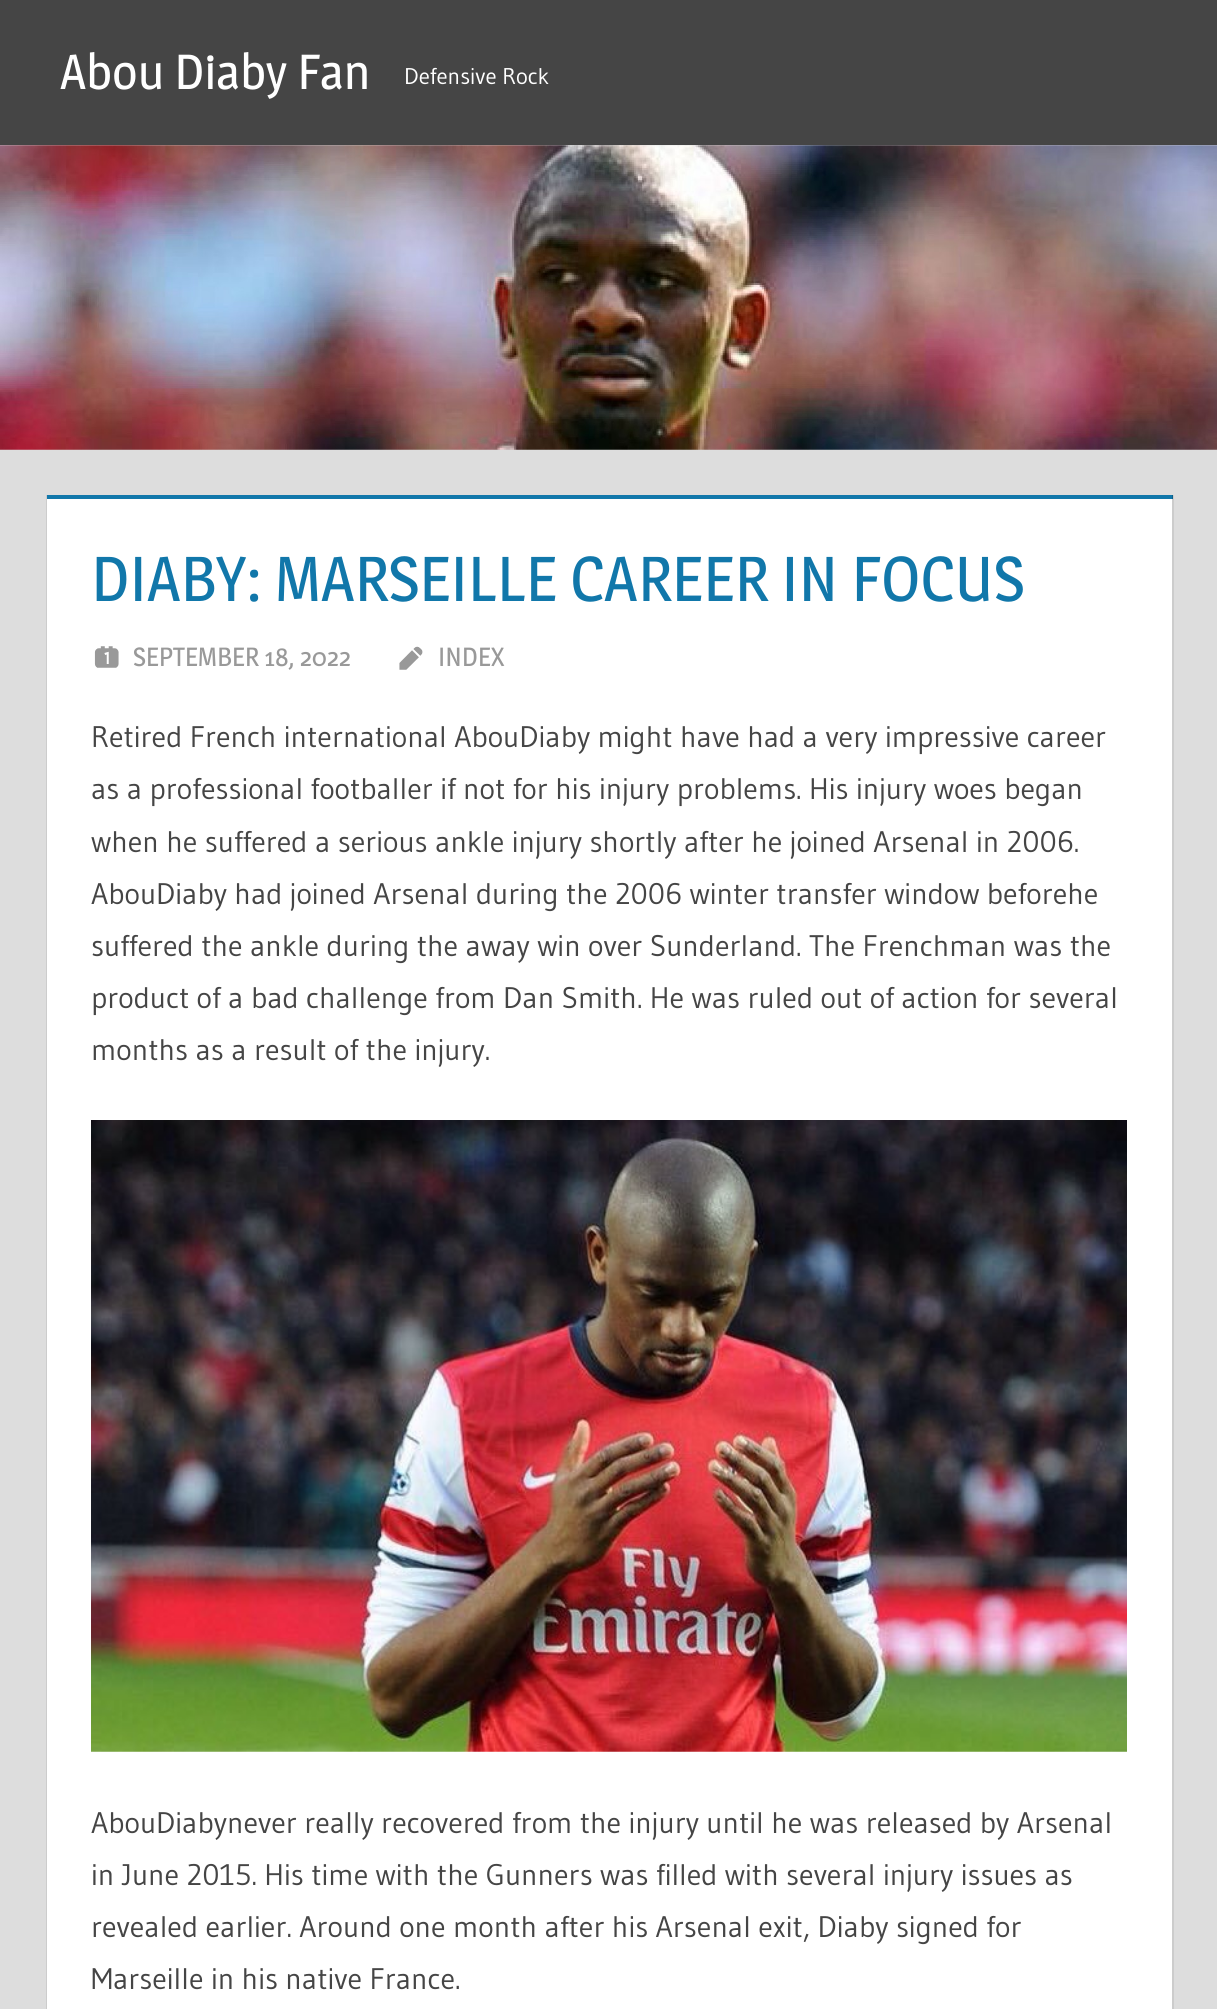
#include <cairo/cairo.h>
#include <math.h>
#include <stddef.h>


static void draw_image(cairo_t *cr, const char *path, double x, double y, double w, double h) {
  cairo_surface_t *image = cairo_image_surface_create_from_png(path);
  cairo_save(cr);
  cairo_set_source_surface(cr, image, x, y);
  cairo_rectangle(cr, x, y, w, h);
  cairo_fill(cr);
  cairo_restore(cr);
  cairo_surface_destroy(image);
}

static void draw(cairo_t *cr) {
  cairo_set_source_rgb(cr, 221 / 255.0, 221 / 255.0, 221 / 255.0);
  cairo_paint(cr);
  cairo_set_source_rgb(cr, 69 / 255.0, 69 / 255.0, 69 / 255.0);
  cairo_rectangle(cr, 0, 0, 1217, 145);
  cairo_fill(cr);
  draw_image(cr, "images/1.png", 0, 145, 1217, 305);
  cairo_set_source_rgb(cr, 1, 1, 1);
  cairo_rectangle(cr, 47, 495, 1127, 1514);
  cairo_fill(cr);
  cairo_set_source_rgb(cr, 17 / 255.0, 119 / 255.0, 170 / 255.0);
  cairo_rectangle(cr, 47, 495, 1126, 4);
  cairo_fill(cr);
  cairo_set_source_rgba(cr, 0, 0, 0, 0.2);
  cairo_new_path(cr);
  cairo_move_to(cr, 1174, 495);
  cairo_line_to(cr, 1174, 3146);
  cairo_line_to(cr, 1172, 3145);
  cairo_line_to(cr, 1172, 495);
  cairo_close_path(cr);
  cairo_fill(cr);
  cairo_set_source_rgb(cr, 204 / 255.0, 204 / 255.0, 204 / 255.0);
  cairo_new_path(cr);
  cairo_move_to(cr, 46, 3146);
  cairo_line_to(cr, 46, 495);
  cairo_line_to(cr, 47, 495);
  cairo_line_to(cr, 47, 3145);
  cairo_close_path(cr);
  cairo_fill(cr);
  draw_image(cr, "images/2.png", 94, 646, 25, 22);
  draw_image(cr, "images/3.png", 399, 646, 24, 24);
  draw_image(cr, "images/4.png", 91, 1120, 1036, 632);
  cairo_select_font_face(cr, "Magra", CAIRO_FONT_SLANT_NORMAL, CAIRO_FONT_WEIGHT_NORMAL);
  cairo_set_font_size(cr, 49);
  cairo_set_source_rgb(cr, 1, 1, 1);
  cairo_move_to(cr, 60, 89);
  cairo_show_text(cr, "Abou Diaby Fan");
  cairo_select_font_face(cr, "Gudea", CAIRO_FONT_SLANT_NORMAL, CAIRO_FONT_WEIGHT_NORMAL);
  cairo_set_font_size(cr, 22.75);
  cairo_move_to(cr, 404, 84);
  cairo_show_text(cr, "Defensive Rock");
  cairo_select_font_face(cr, "Magra", CAIRO_FONT_SLANT_NORMAL, CAIRO_FONT_WEIGHT_NORMAL);
  cairo_set_font_size(cr, 63);
  cairo_set_source_rgb(cr, 17 / 255.0, 119 / 255.0, 170 / 255.0);
  cairo_move_to(cr, 91, 601);
  cairo_show_text(cr, "DIABY: MARSEILLE CAREER IN FOCUS");
  cairo_set_font_size(cr, 26.25);
  cairo_set_source_rgb(cr, 153 / 255.0, 153 / 255.0, 153 / 255.0);
  cairo_move_to(cr, 133, 666);
  cairo_show_text(cr, "SEPTEMBER 18, 2022");
  cairo_move_to(cr, 438, 666);
  cairo_show_text(cr, "INDEX");
  cairo_select_font_face(cr, "Gudea", CAIRO_FONT_SLANT_NORMAL, CAIRO_FONT_WEIGHT_NORMAL);
  cairo_set_font_size(cr, 29.75);
  cairo_set_source_rgb(cr, 69 / 255.0, 69 / 255.0, 69 / 255.0);
  cairo_move_to(cr, 91, 747);
  cairo_show_text(cr, "Retired French international AbouDiaby might have had a very impressive career");
  cairo_move_to(cr, 91, 799);
  cairo_show_text(cr, "as a professional footballer if not for his injury problems. His injury woes began");
  cairo_move_to(cr, 91, 852);
  cairo_show_text(cr, "when he suffered a serious ankle injury shortly after he joined Arsenal in 2006.");
  cairo_move_to(cr, 91, 904);
  cairo_show_text(cr, "AbouDiaby had joined Arsenal during the 2006 winter transfer window beforehe");
  cairo_move_to(cr, 91, 956);
  cairo_show_text(cr, "suffered the ankle during the away win over Sunderland. The Frenchman was the");
  cairo_move_to(cr, 91, 1008);
  cairo_show_text(cr, "product of a bad challenge from Dan Smith. He was ruled out of action for several");
  cairo_move_to(cr, 91, 1060);
  cairo_show_text(cr, "months as a result of the injury.");
  cairo_move_to(cr, 91, 1833);
  cairo_show_text(cr, "AbouDiabynever really recovered from the injury until he was released by Arsenal");
  cairo_move_to(cr, 91, 1885);
  cairo_show_text(cr, "in June 2015. His time with the Gunners was filled with several injury issues as");
  cairo_move_to(cr, 91, 1937);
  cairo_show_text(cr, "revealed earlier. Around one month after his Arsenal exit, Diaby signed for");
  cairo_move_to(cr, 91, 1989);
  cairo_show_text(cr, "Marseille in his native France.");
}

int main(void) {
  cairo_surface_t *surface = cairo_image_surface_create(CAIRO_FORMAT_RGB24, 1217, 2009);
  cairo_t *cr = cairo_create(surface);
  cairo_font_options_t *options = cairo_font_options_create();
  cairo_font_options_set_hint_metrics(options, CAIRO_HINT_METRICS_OFF);
  cairo_font_options_set_hint_style(options, CAIRO_HINT_STYLE_NONE);
  cairo_set_font_options(cr, options);
  cairo_set_miter_limit(cr, 4);
  draw(cr);
  cairo_surface_write_to_png(surface, "out.png");
  cairo_font_options_destroy(options);
  cairo_destroy(cr);
  cairo_surface_destroy(surface);
  return 0;
}
